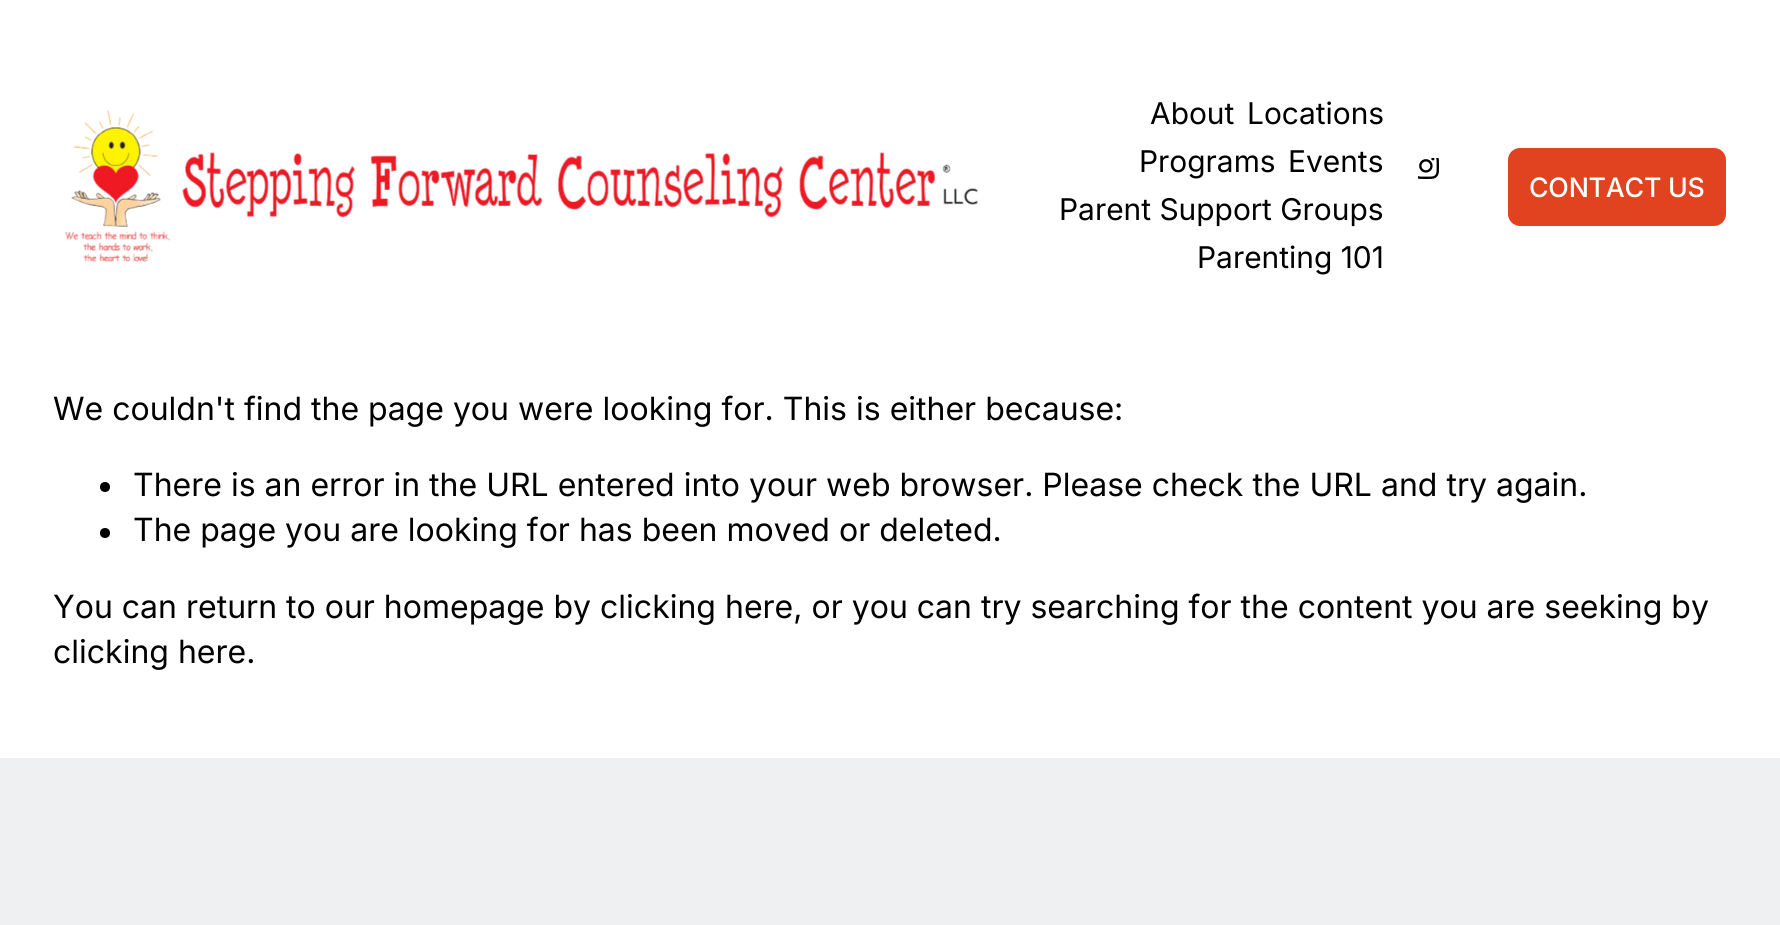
#include <cairo/cairo.h>
#include <math.h>
#include <stddef.h>


static void draw_spaced(cairo_t *cr, double x, double y, const char *s, double letter, double word) {
  cairo_move_to(cr, x, y);
  while (*s) {
    char ch[5] = {0};
    int n = 0;
    do ch[n++] = *s++; while ((*s & 0xC0) == 0x80);
    cairo_show_text(cr, ch);
    cairo_rel_move_to(cr, letter + word * (*ch == ' '), 0);
  }
}

static void rounded_rect(cairo_t *cr, double x, double y, double w, double h, double r) {
  cairo_new_sub_path(cr);
  cairo_arc(cr, x + w - r, y + h - r, r, 0, M_PI / 2);
  cairo_arc(cr, x + r, y + h - r, r, M_PI / 2, M_PI);
  cairo_arc(cr, x + r, y + r, r, M_PI, 1.5 * M_PI);
  cairo_arc(cr, x + w - r, y + r, r, 1.5 * M_PI, 2 * M_PI);
  cairo_close_path(cr);
}

static void draw_image(cairo_t *cr, const char *path, double x, double y, double w, double h) {
  cairo_surface_t *image = cairo_image_surface_create_from_png(path);
  cairo_save(cr);
  cairo_set_source_surface(cr, image, x, y);
  cairo_rectangle(cr, x, y, w, h);
  cairo_fill(cr);
  cairo_restore(cr);
  cairo_surface_destroy(image);
}

static void draw(cairo_t *cr) {
  cairo_set_source_rgb(cr, 1, 1, 1);
  cairo_paint(cr);
  draw_image(cr, "images/1.png", 65, 109, 913, 153);
  draw_image(cr, "images/2.png", 1418, 158, 21, 21);
  cairo_set_source_rgb(cr, 225 / 255.0, 66 / 255.0, 32 / 255.0);
  rounded_rect(cr, 1508, 148, 218, 78, 12);
  cairo_fill(cr);
  cairo_set_source_rgb(cr, 0, 0, 0);
  cairo_arc(cr, 105, 487, 5, 0, 2 * M_PI);
  cairo_fill(cr);
  cairo_arc(cr, 105, 533, 5, 0, 2 * M_PI);
  cairo_fill(cr);
  cairo_set_source_rgb(cr, 239 / 255.0, 240 / 255.0, 241 / 255.0);
  cairo_rectangle(cr, 0, 758, 1780, 167);
  cairo_fill(cr);
  cairo_select_font_face(cr, "Inter", CAIRO_FONT_SLANT_NORMAL, CAIRO_FONT_WEIGHT_NORMAL);
  cairo_set_font_size(cr, 29.9);
  cairo_set_source_rgb(cr, 0, 0, 0);
  cairo_move_to(cr, 1150, 124);
  cairo_show_text(cr, "About");
  cairo_move_to(cr, 1247, 124);
  cairo_show_text(cr, "Locations");
  cairo_move_to(cr, 1139, 172);
  cairo_show_text(cr, "Programs");
  cairo_move_to(cr, 1288, 172);
  cairo_show_text(cr, "Events");
  cairo_move_to(cr, 1059, 220);
  cairo_show_text(cr, "Parent Support Groups");
  cairo_move_to(cr, 1197, 268);
  cairo_show_text(cr, "Parenting 101");
  cairo_select_font_face(cr, "Inter Medium", CAIRO_FONT_SLANT_NORMAL, CAIRO_FONT_WEIGHT_NORMAL);
  cairo_set_font_size(cr, 26.75);
  cairo_set_source_rgb(cr, 1, 1, 1);
  draw_spaced(cr, 1529, 197, "CONTACT US", -0.25, 0);
  cairo_select_font_face(cr, "Inter", CAIRO_FONT_SLANT_NORMAL, CAIRO_FONT_WEIGHT_NORMAL);
  cairo_set_font_size(cr, 32);
  cairo_set_source_rgb(cr, 0, 0, 0);
  cairo_move_to(cr, 53, 420);
  cairo_show_text(cr, "We couldn't find the page you were looking for. This is either because:");
  cairo_move_to(cr, 133, 496);
  cairo_show_text(cr, "There is an error in the URL entered into your web browser. Please check the URL and try again.");
  cairo_move_to(cr, 133, 541);
  cairo_show_text(cr, "The page you are looking for has been moved or deleted.");
  cairo_move_to(cr, 53, 618);
  cairo_show_text(cr, "You can return to our homepage by clicking here, or you can try searching for the content you are seeking by");
  cairo_move_to(cr, 53, 663);
  cairo_show_text(cr, "clicking here.");
}

int main(void) {
  cairo_surface_t *surface = cairo_image_surface_create(CAIRO_FORMAT_RGB24, 1780, 925);
  cairo_t *cr = cairo_create(surface);
  cairo_font_options_t *options = cairo_font_options_create();
  cairo_font_options_set_hint_metrics(options, CAIRO_HINT_METRICS_OFF);
  cairo_font_options_set_hint_style(options, CAIRO_HINT_STYLE_NONE);
  cairo_set_font_options(cr, options);
  cairo_set_miter_limit(cr, 4);
  draw(cr);
  cairo_surface_write_to_png(surface, "out.png");
  cairo_font_options_destroy(options);
  cairo_destroy(cr);
  cairo_surface_destroy(surface);
  return 0;
}
